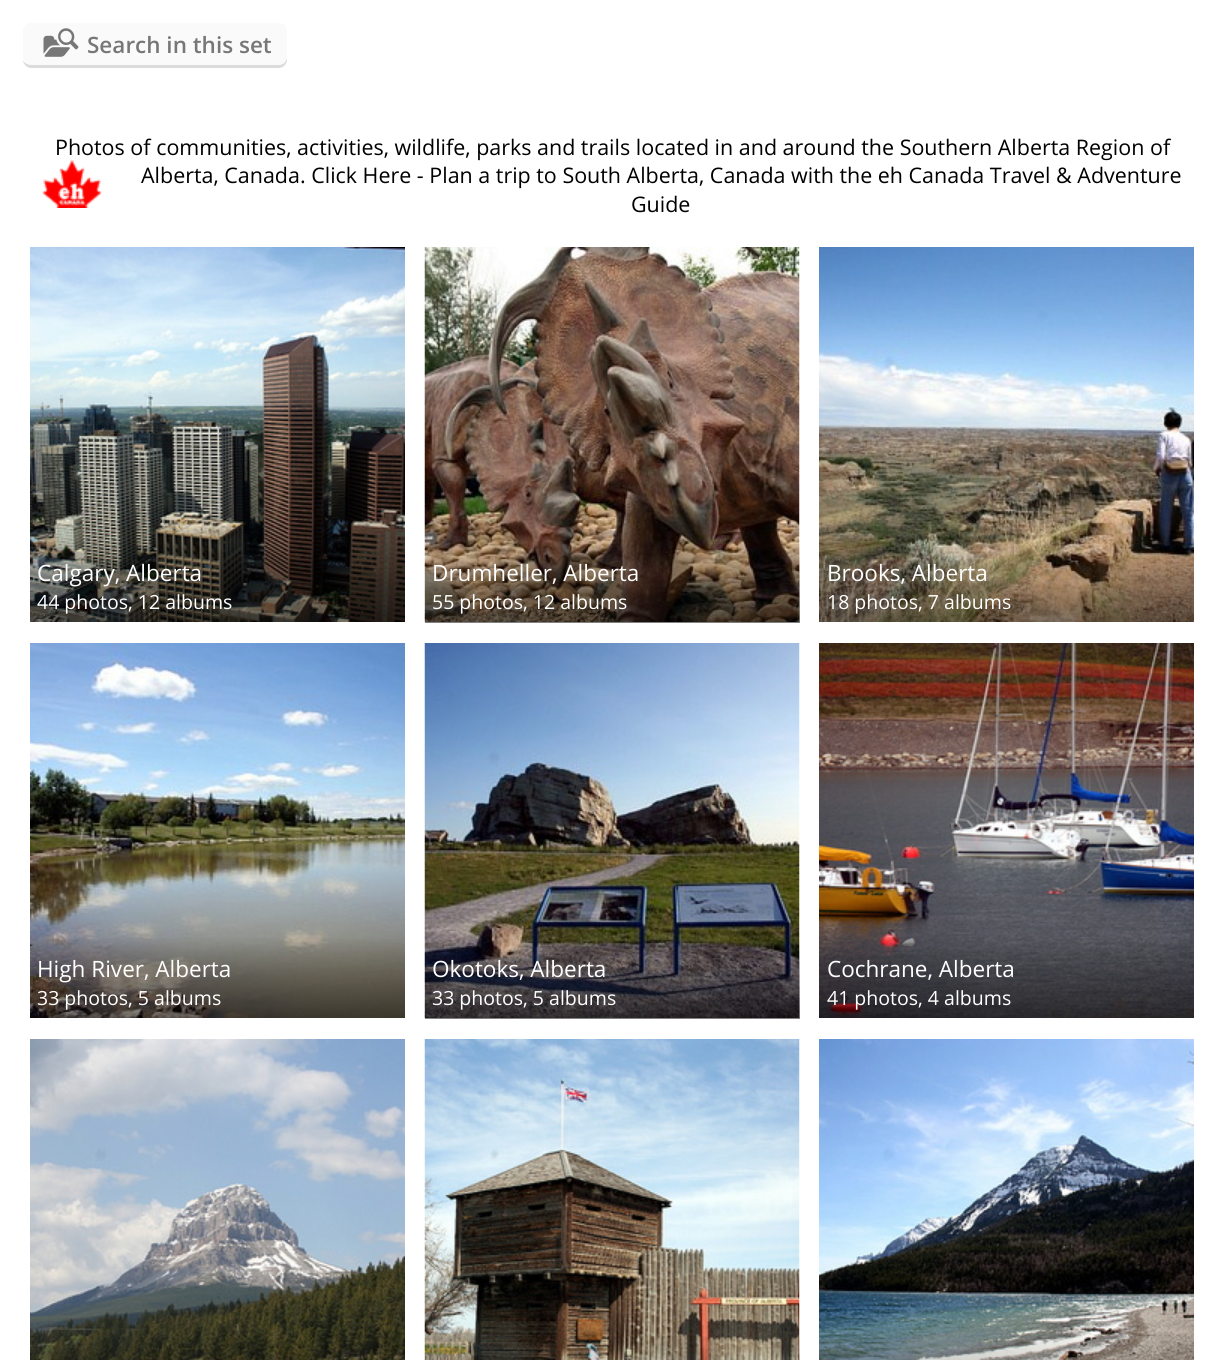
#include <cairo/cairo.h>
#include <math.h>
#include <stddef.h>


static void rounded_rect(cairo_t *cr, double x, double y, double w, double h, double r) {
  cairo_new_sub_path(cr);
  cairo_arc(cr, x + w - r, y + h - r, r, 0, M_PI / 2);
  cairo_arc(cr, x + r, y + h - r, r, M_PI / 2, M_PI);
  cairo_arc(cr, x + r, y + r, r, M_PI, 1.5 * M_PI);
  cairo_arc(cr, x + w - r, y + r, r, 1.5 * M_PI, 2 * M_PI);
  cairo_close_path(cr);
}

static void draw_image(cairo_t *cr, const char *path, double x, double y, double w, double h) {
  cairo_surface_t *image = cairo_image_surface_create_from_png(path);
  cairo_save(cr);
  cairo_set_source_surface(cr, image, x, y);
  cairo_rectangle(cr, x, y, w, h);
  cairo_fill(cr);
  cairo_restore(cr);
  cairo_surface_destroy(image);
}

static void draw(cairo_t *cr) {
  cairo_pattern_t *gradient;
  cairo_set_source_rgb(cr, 1, 1, 1);
  cairo_paint(cr);
  cairo_set_source_rgb(cr, 219 / 255.0, 219 / 255.0, 219 / 255.0);
  cairo_new_path(cr);
  cairo_move_to(cr, 23, 60);
  cairo_curve_to(cr, 23, 64, 27, 68, 31, 68);
  cairo_line_to(cr, 279, 68);
  cairo_curve_to(cr, 283, 68, 287, 64, 287, 60);
  cairo_line_to(cr, 287, 34);
  cairo_line_to(cr, 286, 31);
  cairo_line_to(cr, 286, 57);
  cairo_curve_to(cr, 286, 61, 283, 64, 279, 64);
  cairo_line_to(cr, 30, 64);
  cairo_curve_to(cr, 27, 64, 24, 63, 23, 60);
  cairo_close_path(cr);
  cairo_fill(cr);
  cairo_set_source_rgb(cr, 250 / 255.0, 250 / 255.0, 250 / 255.0);
  rounded_rect(cr, 23, 23, 264, 42, 8);
  cairo_fill(cr);
  draw_image(cr, "images/1.png", 43, 28, 36, 29);
  draw_image(cr, "images/2.png", 41, 160, 62, 48);
  draw_image(cr, "images/3.png", 30, 247, 375, 375);
  draw_image(cr, "images/4.png", 424, 247, 376, 375);
  gradient = cairo_pattern_create_linear(612, 542, 612, 624);
  cairo_pattern_add_color_stop_rgba(gradient, 0, 0, 0, 0, 0.01);
  cairo_pattern_add_color_stop_rgba(gradient, 1, 0, 0, 0, 0.5);
  cairo_set_source(cr, gradient);
  cairo_pattern_destroy(gradient);
  cairo_rectangle(cr, 425, 544, 375, 79);
  cairo_fill(cr);
  draw_image(cr, "images/5.png", 819, 247, 375, 375);
  draw_image(cr, "images/6.png", 30, 643, 375, 375);
  draw_image(cr, "images/7.png", 424, 643, 376, 375);
  gradient = cairo_pattern_create_linear(612, 938, 612, 1020);
  cairo_pattern_add_color_stop_rgba(gradient, 0, 0, 0, 0, 0.01);
  cairo_pattern_add_color_stop_rgba(gradient, 1, 0, 0, 0, 0.5);
  cairo_set_source(cr, gradient);
  cairo_pattern_destroy(gradient);
  cairo_rectangle(cr, 425, 940, 375, 79);
  cairo_fill(cr);
  draw_image(cr, "images/8.png", 819, 643, 375, 375);
  draw_image(cr, "images/9.png", 30, 1039, 375, 321);
  draw_image(cr, "images/10.png", 424, 1039, 376, 321);
  gradient = cairo_pattern_create_linear(612, 1334, 612, 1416);
  cairo_pattern_add_color_stop_rgba(gradient, 0, 0, 0, 0, 0.01);
  cairo_pattern_add_color_stop_rgba(gradient, 1, 0, 0, 0, 0.5);
  cairo_set_source(cr, gradient);
  cairo_pattern_destroy(gradient);
  cairo_rectangle(cr, 425, 1336, 375, 24);
  cairo_fill(cr);
  draw_image(cr, "images/11.png", 819, 1039, 375, 321);
  cairo_select_font_face(cr, "Open Sans SemiBold", CAIRO_FONT_SLANT_NORMAL, CAIRO_FONT_WEIGHT_NORMAL);
  cairo_set_font_size(cr, 22.5);
  cairo_set_source_rgb(cr, 119 / 255.0, 119 / 255.0, 119 / 255.0);
  cairo_move_to(cr, 87, 53);
  cairo_show_text(cr, "Search in this set");
  cairo_select_font_face(cr, "Open Sans", CAIRO_FONT_SLANT_NORMAL, CAIRO_FONT_WEIGHT_NORMAL);
  cairo_set_font_size(cr, 21.45);
  cairo_set_source_rgb(cr, 0, 0, 0);
  cairo_move_to(cr, 55, 155);
  cairo_show_text(cr, "Photos of communities, activities, wildlife, parks and trails located in and around the Southern Alberta Region of");
  cairo_move_to(cr, 141, 183);
  cairo_show_text(cr, "Alberta, Canada. Click Here - Plan a trip to South Alberta, Canada with the eh Canada Travel & Adventure");
  cairo_move_to(cr, 631, 212);
  cairo_show_text(cr, "Guide");
  cairo_set_font_size(cr, 22.5);
  cairo_set_source_rgb(cr, 1, 1, 1);
  cairo_move_to(cr, 37, 581);
  cairo_show_text(cr, "Calgary, Alberta");
  cairo_set_font_size(cr, 19.5);
  cairo_move_to(cr, 37, 609);
  cairo_show_text(cr, "44 photos, 12 albums");
  cairo_set_font_size(cr, 22.5);
  cairo_move_to(cr, 432, 581);
  cairo_show_text(cr, "Drumheller, Alberta");
  cairo_set_font_size(cr, 19.5);
  cairo_move_to(cr, 432, 609);
  cairo_show_text(cr, "55 photos, 12 albums");
  cairo_set_font_size(cr, 22.5);
  cairo_move_to(cr, 827, 581);
  cairo_show_text(cr, "Brooks, Alberta");
  cairo_set_font_size(cr, 19.5);
  cairo_move_to(cr, 827, 609);
  cairo_show_text(cr, "18 photos, 7 albums");
  cairo_set_font_size(cr, 22.5);
  cairo_move_to(cr, 37, 977);
  cairo_show_text(cr, "High River, Alberta");
  cairo_set_font_size(cr, 19.5);
  cairo_move_to(cr, 37, 1005);
  cairo_show_text(cr, "33 photos, 5 albums");
  cairo_set_font_size(cr, 22.5);
  cairo_move_to(cr, 432, 977);
  cairo_show_text(cr, "Okotoks, Alberta");
  cairo_set_font_size(cr, 19.5);
  cairo_move_to(cr, 432, 1005);
  cairo_show_text(cr, "33 photos, 5 albums");
  cairo_set_font_size(cr, 22.5);
  cairo_move_to(cr, 827, 977);
  cairo_show_text(cr, "Cochrane, Alberta");
  cairo_set_font_size(cr, 19.5);
  cairo_move_to(cr, 827, 1005);
  cairo_show_text(cr, "41 photos, 4 albums");
}

int main(void) {
  cairo_surface_t *surface = cairo_image_surface_create(CAIRO_FORMAT_RGB24, 1224, 1360);
  cairo_t *cr = cairo_create(surface);
  cairo_font_options_t *options = cairo_font_options_create();
  cairo_font_options_set_hint_metrics(options, CAIRO_HINT_METRICS_OFF);
  cairo_font_options_set_hint_style(options, CAIRO_HINT_STYLE_NONE);
  cairo_set_font_options(cr, options);
  cairo_set_miter_limit(cr, 4);
  draw(cr);
  cairo_surface_write_to_png(surface, "out.png");
  cairo_font_options_destroy(options);
  cairo_destroy(cr);
  cairo_surface_destroy(surface);
  return 0;
}
